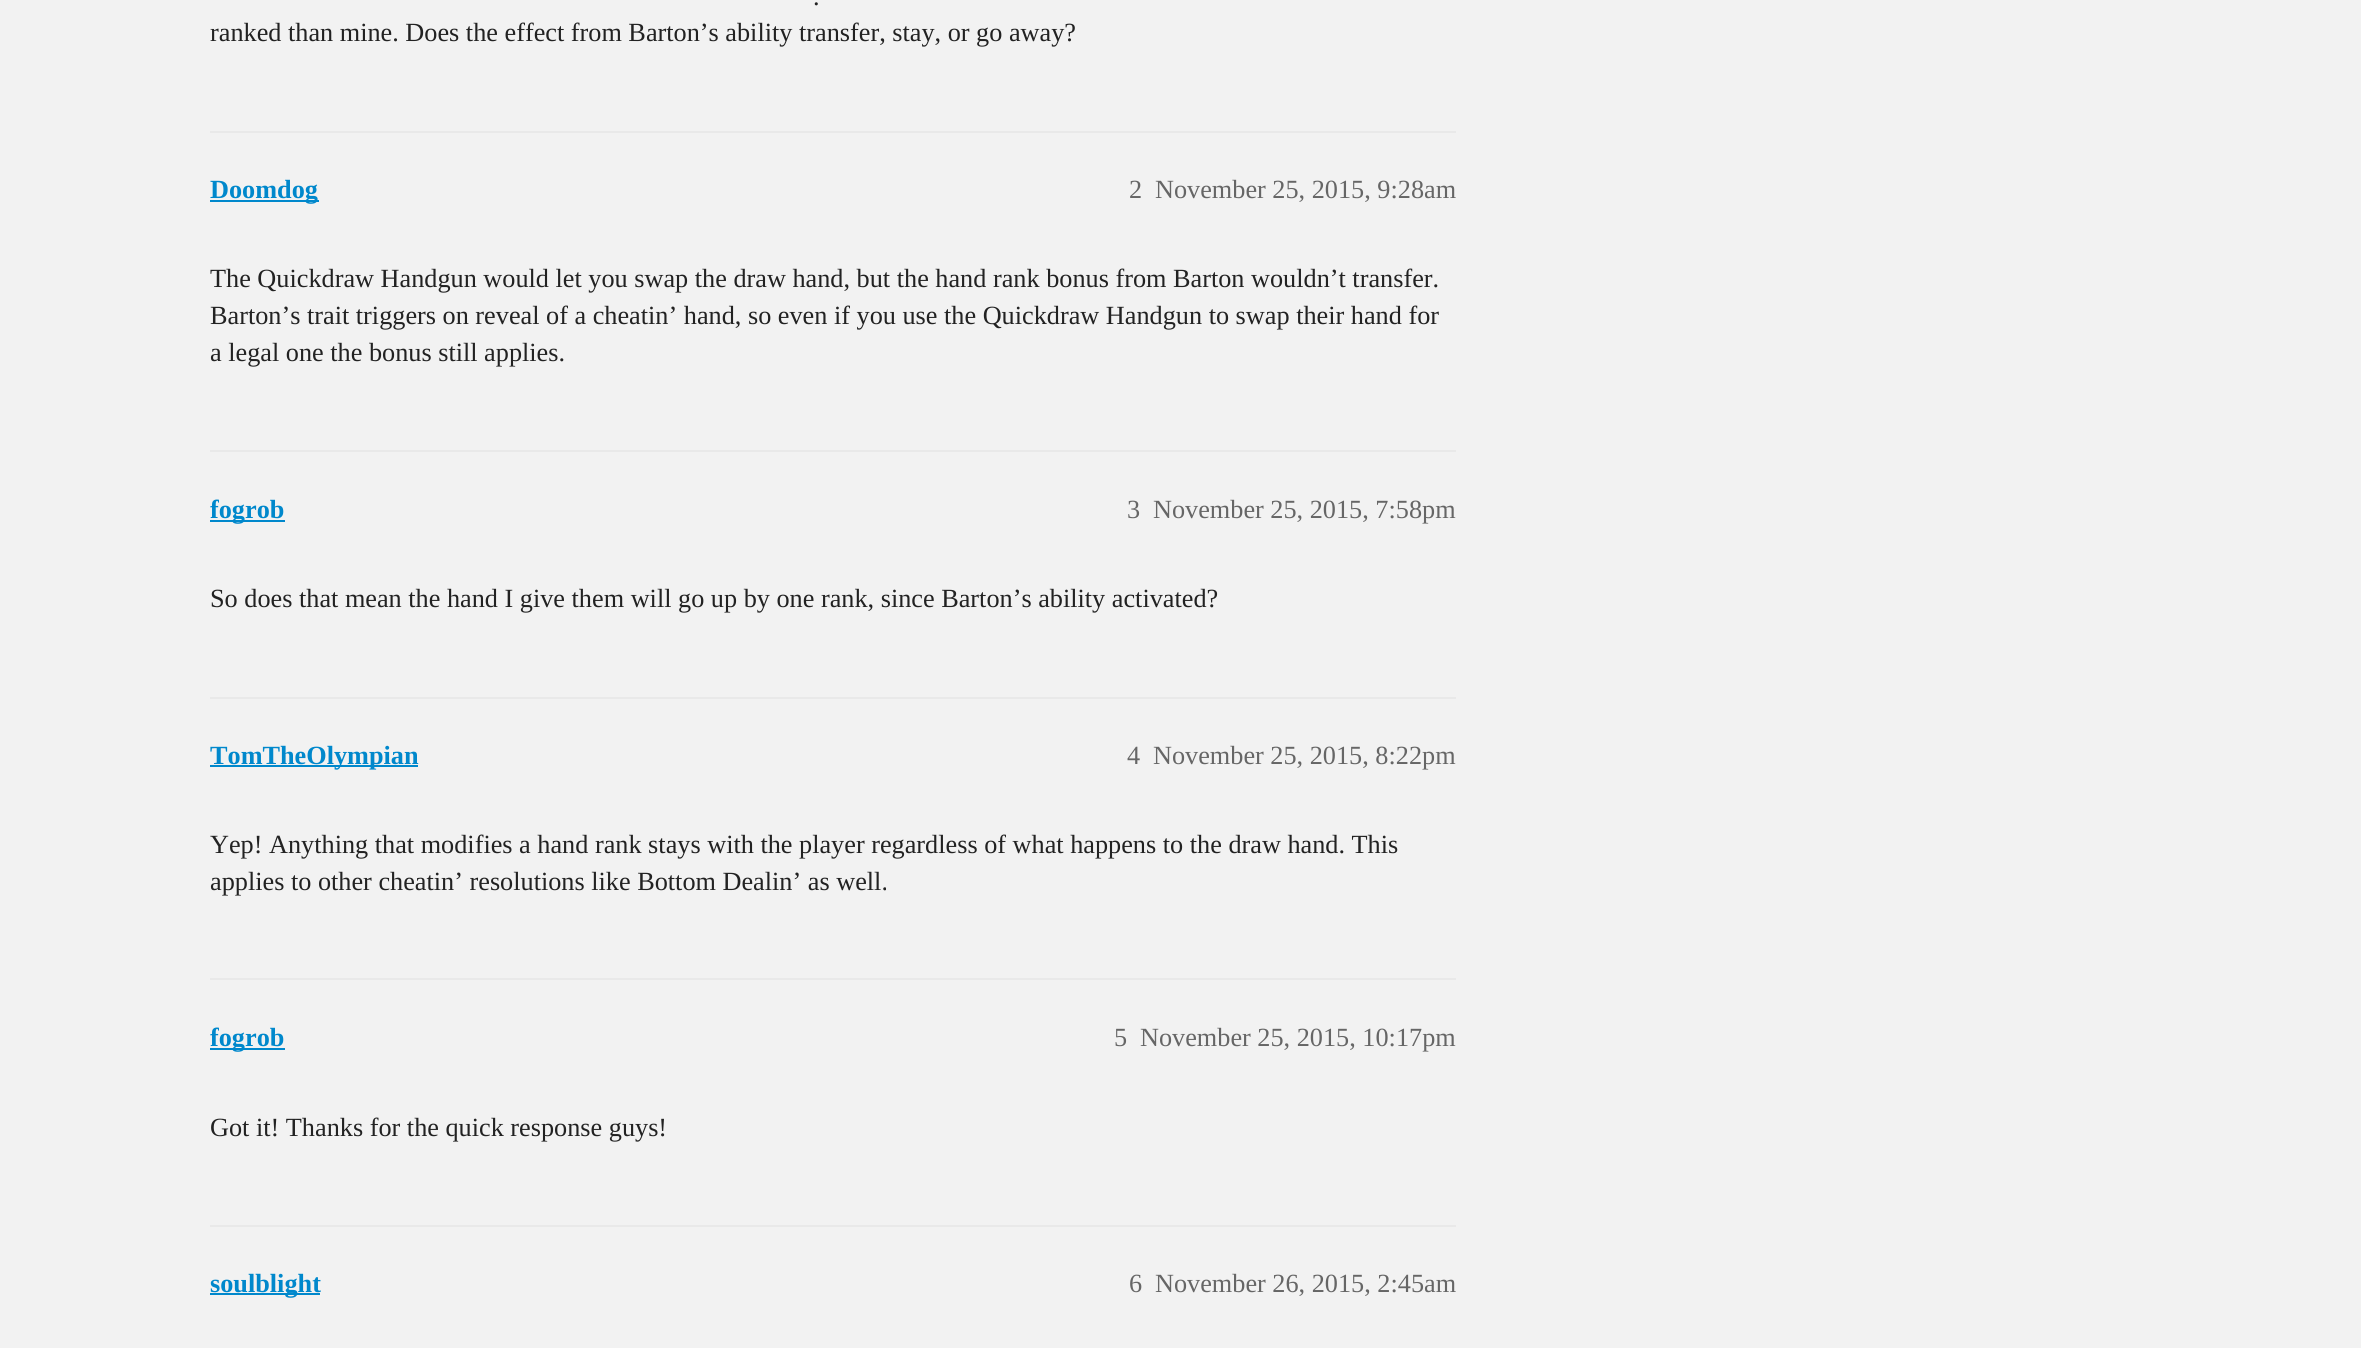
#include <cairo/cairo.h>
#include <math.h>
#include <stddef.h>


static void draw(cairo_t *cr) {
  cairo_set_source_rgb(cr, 242 / 255.0, 242 / 255.0, 242 / 255.0);
  cairo_paint(cr);
  cairo_set_source_rgb(cr, 233 / 255.0, 233 / 255.0, 233 / 255.0);
  cairo_rectangle(cr, 210, 131, 1246, 2);
  cairo_fill(cr);
  cairo_set_source_rgb(cr, 0, 136 / 255.0, 204 / 255.0);
  cairo_rectangle(cr, 210, 200, 109, 2);
  cairo_fill(cr);
  cairo_set_source_rgb(cr, 233 / 255.0, 233 / 255.0, 233 / 255.0);
  cairo_rectangle(cr, 210, 450, 1246, 2);
  cairo_fill(cr);
  cairo_set_source_rgb(cr, 0, 136 / 255.0, 204 / 255.0);
  cairo_rectangle(cr, 210, 520, 75, 2);
  cairo_fill(cr);
  cairo_set_source_rgb(cr, 233 / 255.0, 233 / 255.0, 233 / 255.0);
  cairo_rectangle(cr, 210, 697, 1246, 2);
  cairo_fill(cr);
  cairo_set_source_rgb(cr, 0, 136 / 255.0, 204 / 255.0);
  cairo_rectangle(cr, 210, 765, 208, 2);
  cairo_fill(cr);
  cairo_set_source_rgb(cr, 233 / 255.0, 233 / 255.0, 233 / 255.0);
  cairo_rectangle(cr, 210, 978, 1246, 2);
  cairo_fill(cr);
  cairo_set_source_rgb(cr, 0, 136 / 255.0, 204 / 255.0);
  cairo_rectangle(cr, 210, 1048, 75, 2);
  cairo_fill(cr);
  cairo_set_source_rgb(cr, 233 / 255.0, 233 / 255.0, 233 / 255.0);
  cairo_rectangle(cr, 210, 1225, 1246, 2);
  cairo_fill(cr);
  cairo_set_source_rgb(cr, 0, 136 / 255.0, 204 / 255.0);
  cairo_rectangle(cr, 210, 1293, 110, 2);
  cairo_fill(cr);
  cairo_select_font_face(cr, "Liberation Serif", CAIRO_FONT_SLANT_NORMAL, CAIRO_FONT_WEIGHT_NORMAL);
  cairo_set_font_size(cr, 26.25);
  cairo_set_source_rgb(cr, 34 / 255.0, 34 / 255.0, 34 / 255.0);
  cairo_move_to(cr, 813, 5);
  cairo_show_text(cr, ".");
  cairo_move_to(cr, 210, 41);
  cairo_show_text(cr, "ranked than mine. Does the effect from Barton’s ability transfer, stay, or go away?");
  cairo_select_font_face(cr, "Liberation Serif", CAIRO_FONT_SLANT_NORMAL, CAIRO_FONT_WEIGHT_BOLD);
  cairo_set_source_rgb(cr, 0, 136 / 255.0, 204 / 255.0);
  cairo_move_to(cr, 210, 198);
  cairo_show_text(cr, "Doomdog");
  cairo_select_font_face(cr, "Liberation Serif", CAIRO_FONT_SLANT_NORMAL, CAIRO_FONT_WEIGHT_NORMAL);
  cairo_set_source_rgb(cr, 102 / 255.0, 102 / 255.0, 102 / 255.0);
  cairo_move_to(cr, 1129, 198);
  cairo_show_text(cr, "2");
  cairo_move_to(cr, 1155, 198);
  cairo_show_text(cr, "November 25, 2015, 9:28am");
  cairo_set_source_rgb(cr, 34 / 255.0, 34 / 255.0, 34 / 255.0);
  cairo_move_to(cr, 210, 287);
  cairo_show_text(cr, "The Quickdraw Handgun would let you swap the draw hand, but the hand rank bonus from Barton wouldn’t transfer.");
  cairo_move_to(cr, 210, 324);
  cairo_show_text(cr, "Barton’s trait triggers on reveal of a cheatin’ hand, so even if you use the Quickdraw Handgun to swap their hand for");
  cairo_move_to(cr, 210, 361);
  cairo_show_text(cr, "a legal one the bonus still applies.");
  cairo_select_font_face(cr, "Liberation Serif", CAIRO_FONT_SLANT_NORMAL, CAIRO_FONT_WEIGHT_BOLD);
  cairo_set_source_rgb(cr, 0, 136 / 255.0, 204 / 255.0);
  cairo_move_to(cr, 210, 518);
  cairo_show_text(cr, "fogrob");
  cairo_select_font_face(cr, "Liberation Serif", CAIRO_FONT_SLANT_NORMAL, CAIRO_FONT_WEIGHT_NORMAL);
  cairo_set_source_rgb(cr, 102 / 255.0, 102 / 255.0, 102 / 255.0);
  cairo_move_to(cr, 1127, 518);
  cairo_show_text(cr, "3");
  cairo_move_to(cr, 1153, 518);
  cairo_show_text(cr, "November 25, 2015, 7:58pm");
  cairo_set_source_rgb(cr, 34 / 255.0, 34 / 255.0, 34 / 255.0);
  cairo_move_to(cr, 210, 607);
  cairo_show_text(cr, "So does that mean the hand I give them will go up by one rank, since Barton’s ability activated?");
  cairo_select_font_face(cr, "Liberation Serif", CAIRO_FONT_SLANT_NORMAL, CAIRO_FONT_WEIGHT_BOLD);
  cairo_set_source_rgb(cr, 0, 136 / 255.0, 204 / 255.0);
  cairo_move_to(cr, 210, 764);
  cairo_show_text(cr, "TomTheOlympian");
  cairo_select_font_face(cr, "Liberation Serif", CAIRO_FONT_SLANT_NORMAL, CAIRO_FONT_WEIGHT_NORMAL);
  cairo_set_source_rgb(cr, 102 / 255.0, 102 / 255.0, 102 / 255.0);
  cairo_move_to(cr, 1127, 764);
  cairo_show_text(cr, "4");
  cairo_move_to(cr, 1153, 764);
  cairo_show_text(cr, "November 25, 2015, 8:22pm");
  cairo_set_source_rgb(cr, 34 / 255.0, 34 / 255.0, 34 / 255.0);
  cairo_move_to(cr, 210, 853);
  cairo_show_text(cr, "Yep! Anything that modifies a hand rank stays with the player regardless of what happens to the draw hand. This");
  cairo_move_to(cr, 210, 890);
  cairo_show_text(cr, "applies to other cheatin’ resolutions like Bottom Dealin’ as well.");
  cairo_select_font_face(cr, "Liberation Serif", CAIRO_FONT_SLANT_NORMAL, CAIRO_FONT_WEIGHT_BOLD);
  cairo_set_source_rgb(cr, 0, 136 / 255.0, 204 / 255.0);
  cairo_move_to(cr, 210, 1046);
  cairo_show_text(cr, "fogrob");
  cairo_select_font_face(cr, "Liberation Serif", CAIRO_FONT_SLANT_NORMAL, CAIRO_FONT_WEIGHT_NORMAL);
  cairo_set_source_rgb(cr, 102 / 255.0, 102 / 255.0, 102 / 255.0);
  cairo_move_to(cr, 1114, 1046);
  cairo_show_text(cr, "5");
  cairo_move_to(cr, 1140, 1046);
  cairo_show_text(cr, "November 25, 2015, 10:17pm");
  cairo_set_source_rgb(cr, 34 / 255.0, 34 / 255.0, 34 / 255.0);
  cairo_move_to(cr, 210, 1136);
  cairo_show_text(cr, "Got it! Thanks for the quick response guys!");
  cairo_select_font_face(cr, "Liberation Serif", CAIRO_FONT_SLANT_NORMAL, CAIRO_FONT_WEIGHT_BOLD);
  cairo_set_source_rgb(cr, 0, 136 / 255.0, 204 / 255.0);
  cairo_move_to(cr, 210, 1292);
  cairo_show_text(cr, "soulblight");
  cairo_select_font_face(cr, "Liberation Serif", CAIRO_FONT_SLANT_NORMAL, CAIRO_FONT_WEIGHT_NORMAL);
  cairo_set_source_rgb(cr, 102 / 255.0, 102 / 255.0, 102 / 255.0);
  cairo_move_to(cr, 1129, 1292);
  cairo_show_text(cr, "6");
  cairo_move_to(cr, 1155, 1292);
  cairo_show_text(cr, "November 26, 2015, 2:45am");
}

int main(void) {
  cairo_surface_t *surface = cairo_image_surface_create(CAIRO_FORMAT_RGB24, 2361, 1348);
  cairo_t *cr = cairo_create(surface);
  cairo_font_options_t *options = cairo_font_options_create();
  cairo_font_options_set_hint_metrics(options, CAIRO_HINT_METRICS_OFF);
  cairo_font_options_set_hint_style(options, CAIRO_HINT_STYLE_NONE);
  cairo_set_font_options(cr, options);
  cairo_set_miter_limit(cr, 4);
  draw(cr);
  cairo_surface_write_to_png(surface, "out.png");
  cairo_font_options_destroy(options);
  cairo_destroy(cr);
  cairo_surface_destroy(surface);
  return 0;
}
